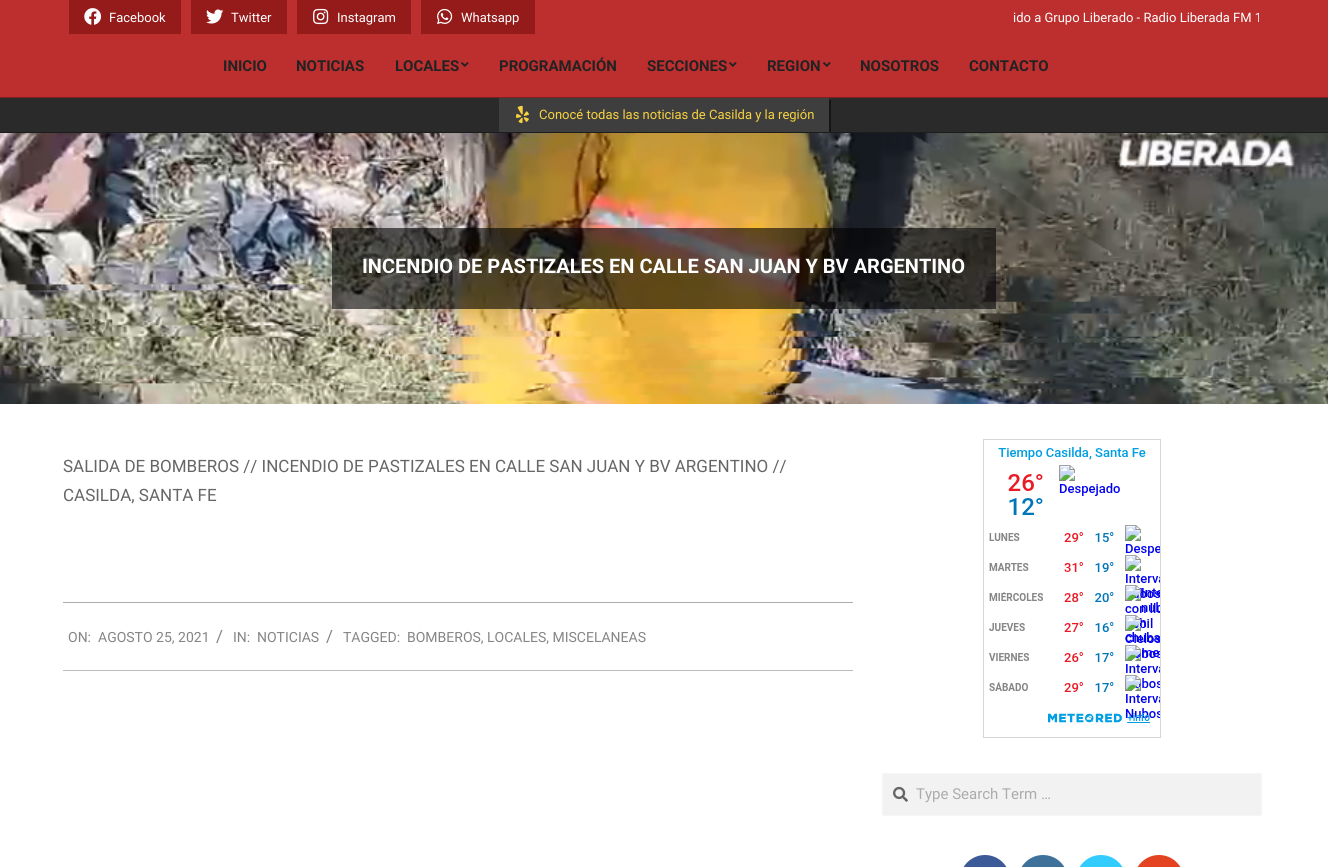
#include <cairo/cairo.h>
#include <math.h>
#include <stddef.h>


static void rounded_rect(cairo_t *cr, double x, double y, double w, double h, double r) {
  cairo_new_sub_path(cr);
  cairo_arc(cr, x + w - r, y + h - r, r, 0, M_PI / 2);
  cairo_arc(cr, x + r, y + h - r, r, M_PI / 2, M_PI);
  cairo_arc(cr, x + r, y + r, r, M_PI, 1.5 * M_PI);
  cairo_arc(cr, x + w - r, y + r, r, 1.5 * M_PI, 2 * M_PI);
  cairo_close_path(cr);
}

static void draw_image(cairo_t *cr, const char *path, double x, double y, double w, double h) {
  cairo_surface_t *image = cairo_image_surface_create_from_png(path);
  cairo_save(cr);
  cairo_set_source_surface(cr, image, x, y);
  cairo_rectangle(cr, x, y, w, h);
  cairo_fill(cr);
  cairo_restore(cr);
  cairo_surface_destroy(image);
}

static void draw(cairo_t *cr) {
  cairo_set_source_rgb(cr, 189 / 255.0, 46 / 255.0, 46 / 255.0);
  cairo_paint(cr);
  cairo_set_source_rgb(cr, 149 / 255.0, 26 / 255.0, 26 / 255.0);
  cairo_rectangle(cr, 69, 0, 112, 34);
  cairo_fill(cr);
  draw_image(cr, "images/1.png", 84, 8, 18, 17);
  cairo_rectangle(cr, 191, 0, 96, 34);
  cairo_fill(cr);
  draw_image(cr, "images/2.png", 206, 9, 18, 15);
  cairo_rectangle(cr, 297, 0, 114, 34);
  cairo_fill(cr);
  draw_image(cr, "images/3.png", 313, 8, 16, 17);
  cairo_rectangle(cr, 421, 0, 114, 34);
  cairo_fill(cr);
  draw_image(cr, "images/4.png", 437, 8, 16, 16);
  cairo_set_source_rgb(cr, 127 / 255.0, 31 / 255.0, 31 / 255.0);
  cairo_rectangle(cr, 0, 97, 1328, 1);
  cairo_fill(cr);
  draw_image(cr, "images/5.png", 461, 62, 8, 5);
  draw_image(cr, "images/5.png", 729, 62, 8, 5);
  draw_image(cr, "images/5.png", 823, 62, 8, 5);
  cairo_set_source_rgb(cr, 42 / 255.0, 42 / 255.0, 42 / 255.0);
  cairo_rectangle(cr, 0, 98, 1328, 34);
  cairo_fill(cr);
  cairo_set_source_rgb(cr, 28 / 255.0, 28 / 255.0, 28 / 255.0);
  cairo_rectangle(cr, 0, 132, 1328, 1);
  cairo_fill(cr);
  cairo_set_source_rgb(cr, 62 / 255.0, 62 / 255.0, 62 / 255.0);
  cairo_rectangle(cr, 499, 98, 330, 34);
  cairo_fill(cr);
  draw_image(cr, "images/6.png", 516, 105, 13, 19);
  cairo_save(cr);
  cairo_rectangle(cr, 0, 98, 1328, 34);
  cairo_clip(cr);
  cairo_set_source_rgb(cr, 21 / 255.0, 21 / 255.0, 21 / 255.0);
  cairo_new_path(cr);
  cairo_move_to(cr, 501, 132);
  cairo_line_to(cr, 501, 134);
  cairo_line_to(cr, 831, 134);
  cairo_line_to(cr, 831, 100);
  cairo_line_to(cr, 829, 100);
  cairo_line_to(cr, 829, 132);
  cairo_close_path(cr);
  cairo_fill(cr);
  cairo_restore(cr);
  cairo_set_source_rgb(cr, 1, 1, 1);
  cairo_rectangle(cr, 0, 404, 1328, 463);
  cairo_fill(cr);
  draw_image(cr, "images/7.png", 0, 133, 1328, 271);
  cairo_set_source_rgba(cr, 0, 0, 0, 0.6);
  cairo_rectangle(cr, 332, 228, 664, 81);
  cairo_fill(cr);
  cairo_set_source_rgb(cr, 171 / 255.0, 171 / 255.0, 171 / 255.0);
  cairo_rectangle(cr, 63, 602, 790, 1);
  cairo_fill(cr);
  cairo_set_source_rgb(cr, 188 / 255.0, 188 / 255.0, 188 / 255.0);
  cairo_rectangle(cr, 63, 670, 790, 1);
  cairo_fill(cr);
  cairo_rectangle(cr, 983.5, 439.5, 177, 298);
  cairo_set_source_rgb(cr, 214 / 255.0, 214 / 255.0, 214 / 255.0);
  cairo_set_line_width(cr, 1);
  cairo_stroke(cr);
  draw_image(cr, "images/8.png", 989, 447, 171, 276);
  cairo_set_source_rgb(cr, 242 / 255.0, 242 / 255.0, 242 / 255.0);
  cairo_rectangle(cr, 882.5, 773.5, 379, 42);
  cairo_fill_preserve(cr);
  cairo_set_source_rgb(cr, 246 / 255.0, 246 / 255.0, 246 / 255.0);
  cairo_stroke(cr);
  draw_image(cr, "images/9.png", 893, 786, 15, 16);
  cairo_set_source_rgb(cr, 60 / 255.0, 90 / 255.0, 152 / 255.0);
  rounded_rect(cr, 960, 855, 50, 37, 25);
  cairo_fill(cr);
  cairo_set_source_rgb(cr, 63 / 255.0, 114 / 255.0, 155 / 255.0);
  rounded_rect(cr, 1018, 855, 50, 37, 25);
  cairo_fill(cr);
  cairo_set_source_rgb(cr, 50 / 255.0, 204 / 255.0, 254 / 255.0);
  rounded_rect(cr, 1076, 855, 50, 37, 25);
  cairo_fill(cr);
  cairo_set_source_rgb(cr, 228 / 255.0, 67 / 255.0, 33 / 255.0);
  rounded_rect(cr, 1134, 855, 50, 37, 25);
  cairo_fill(cr);
  cairo_select_font_face(cr, "Roboto", CAIRO_FONT_SLANT_NORMAL, CAIRO_FONT_WEIGHT_NORMAL);
  cairo_set_font_size(cr, 13);
  cairo_set_source_rgb(cr, 1, 1, 1);
  cairo_move_to(cr, 109, 22);
  cairo_show_text(cr, "Facebook");
  cairo_move_to(cr, 231, 22);
  cairo_show_text(cr, "Twitter");
  cairo_move_to(cr, 337, 22);
  cairo_show_text(cr, "Instagram");
  cairo_move_to(cr, 461, 22);
  cairo_show_text(cr, "Whatsapp");
  cairo_save(cr);
  cairo_rectangle(cr, 1009, 7, 250, 21);
  cairo_clip(cr);
  cairo_move_to(cr, 1013, 22);
  cairo_show_text(cr, "ido a Grupo Liberado - Radio Liberada FM 1");
  cairo_restore(cr);
  cairo_select_font_face(cr, "Roboto", CAIRO_FONT_SLANT_NORMAL, CAIRO_FONT_WEIGHT_BOLD);
  cairo_set_font_size(cr, 15);
  cairo_set_source_rgb(cr, 34 / 255.0, 34 / 255.0, 34 / 255.0);
  cairo_move_to(cr, 223, 71);
  cairo_show_text(cr, "INICIO");
  cairo_move_to(cr, 296, 71);
  cairo_show_text(cr, "NOTICIAS");
  cairo_move_to(cr, 395, 71);
  cairo_show_text(cr, "LOCALES");
  cairo_move_to(cr, 499, 71);
  cairo_show_text(cr, "PROGRAMACIÓN");
  cairo_move_to(cr, 647, 71);
  cairo_show_text(cr, "SECCIONES");
  cairo_move_to(cr, 767, 71);
  cairo_show_text(cr, "REGION");
  cairo_move_to(cr, 860, 71);
  cairo_show_text(cr, "NOSOTROS");
  cairo_move_to(cr, 969, 71);
  cairo_show_text(cr, "CONTACTO");
  cairo_select_font_face(cr, "Roboto", CAIRO_FONT_SLANT_NORMAL, CAIRO_FONT_WEIGHT_NORMAL);
  cairo_set_font_size(cr, 13);
  cairo_set_source_rgb(cr, 247 / 255.0, 211 / 255.0, 65 / 255.0);
  cairo_move_to(cr, 539, 119);
  cairo_show_text(cr, "Conocé todas las noticias de Casilda y la región");
  cairo_select_font_face(cr, "Roboto", CAIRO_FONT_SLANT_NORMAL, CAIRO_FONT_WEIGHT_BOLD);
  cairo_set_font_size(cr, 20);
  cairo_set_source_rgb(cr, 1, 1, 1);
  cairo_move_to(cr, 362, 273);
  cairo_show_text(cr, "INCENDIO DE PASTIZALES EN CALLE SAN JUAN Y BV ARGENTINO");
  cairo_select_font_face(cr, "Roboto", CAIRO_FONT_SLANT_NORMAL, CAIRO_FONT_WEIGHT_NORMAL);
  cairo_set_font_size(cr, 17);
  cairo_set_source_rgb(cr, 102 / 255.0, 102 / 255.0, 102 / 255.0);
  cairo_move_to(cr, 63, 472);
  cairo_show_text(cr, "SALIDA DE BOMBEROS // INCENDIO DE PASTIZALES EN CALLE SAN JUAN Y BV ARGENTINO //");
  cairo_move_to(cr, 63, 501);
  cairo_show_text(cr, "CASILDA, SANTA FE");
  cairo_set_font_size(cr, 14);
  cairo_set_source_rgb(cr, 133 / 255.0, 133 / 255.0, 133 / 255.0);
  cairo_move_to(cr, 68, 642);
  cairo_show_text(cr, "ON:");
  cairo_move_to(cr, 98, 642);
  cairo_show_text(cr, "AGOSTO 25, 2021");
  cairo_set_font_size(cr, 17);
  cairo_move_to(cr, 216, 642);
  cairo_show_text(cr, "/");
  cairo_set_font_size(cr, 14);
  cairo_move_to(cr, 233, 642);
  cairo_show_text(cr, "IN:");
  cairo_move_to(cr, 257, 642);
  cairo_show_text(cr, "NOTICIAS");
  cairo_set_font_size(cr, 17);
  cairo_move_to(cr, 326, 642);
  cairo_show_text(cr, "/");
  cairo_set_font_size(cr, 14);
  cairo_move_to(cr, 343, 642);
  cairo_show_text(cr, "TAGGED:");
  cairo_move_to(cr, 407, 642);
  cairo_show_text(cr, "BOMBEROS, LOCALES, MISCELANEAS");
  cairo_set_font_size(cr, 15);
  cairo_set_source_rgb(cr, 172 / 255.0, 172 / 255.0, 172 / 255.0);
  cairo_move_to(cr, 916, 799);
  cairo_show_text(cr, "Type Search Term …");
}

int main(void) {
  cairo_surface_t *surface = cairo_image_surface_create(CAIRO_FORMAT_RGB24, 1328, 867);
  cairo_t *cr = cairo_create(surface);
  cairo_font_options_t *options = cairo_font_options_create();
  cairo_font_options_set_hint_metrics(options, CAIRO_HINT_METRICS_OFF);
  cairo_font_options_set_hint_style(options, CAIRO_HINT_STYLE_NONE);
  cairo_set_font_options(cr, options);
  cairo_set_miter_limit(cr, 4);
  draw(cr);
  cairo_surface_write_to_png(surface, "out.png");
  cairo_font_options_destroy(options);
  cairo_destroy(cr);
  cairo_surface_destroy(surface);
  return 0;
}
